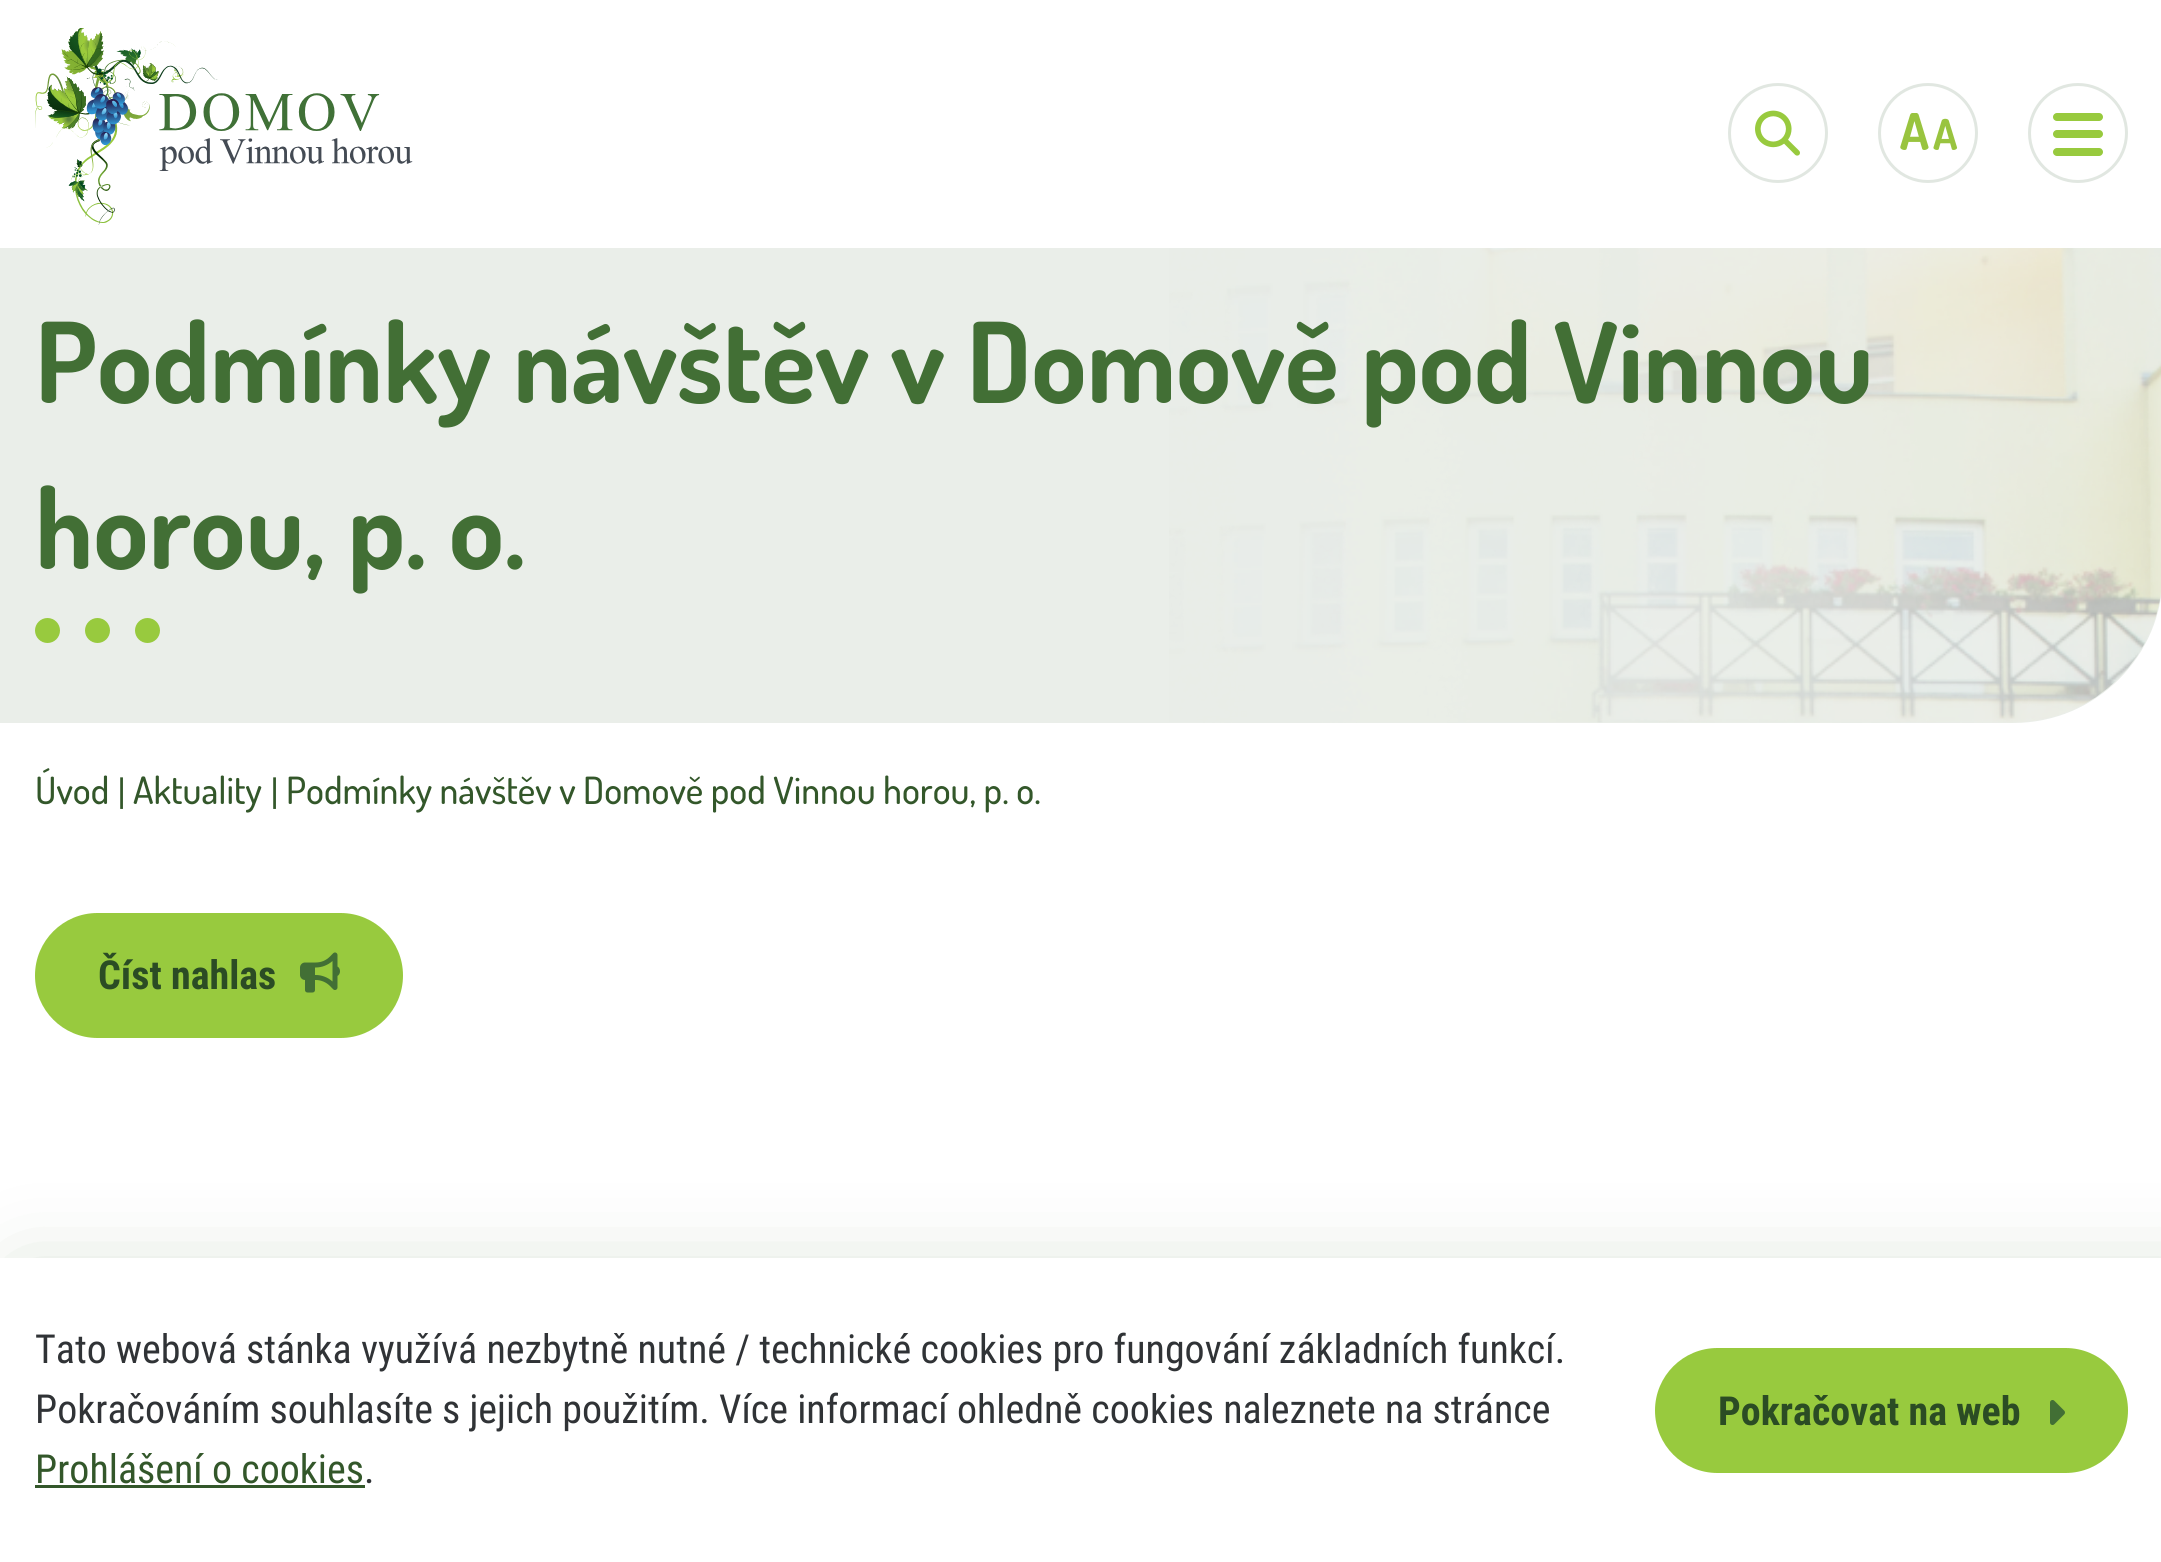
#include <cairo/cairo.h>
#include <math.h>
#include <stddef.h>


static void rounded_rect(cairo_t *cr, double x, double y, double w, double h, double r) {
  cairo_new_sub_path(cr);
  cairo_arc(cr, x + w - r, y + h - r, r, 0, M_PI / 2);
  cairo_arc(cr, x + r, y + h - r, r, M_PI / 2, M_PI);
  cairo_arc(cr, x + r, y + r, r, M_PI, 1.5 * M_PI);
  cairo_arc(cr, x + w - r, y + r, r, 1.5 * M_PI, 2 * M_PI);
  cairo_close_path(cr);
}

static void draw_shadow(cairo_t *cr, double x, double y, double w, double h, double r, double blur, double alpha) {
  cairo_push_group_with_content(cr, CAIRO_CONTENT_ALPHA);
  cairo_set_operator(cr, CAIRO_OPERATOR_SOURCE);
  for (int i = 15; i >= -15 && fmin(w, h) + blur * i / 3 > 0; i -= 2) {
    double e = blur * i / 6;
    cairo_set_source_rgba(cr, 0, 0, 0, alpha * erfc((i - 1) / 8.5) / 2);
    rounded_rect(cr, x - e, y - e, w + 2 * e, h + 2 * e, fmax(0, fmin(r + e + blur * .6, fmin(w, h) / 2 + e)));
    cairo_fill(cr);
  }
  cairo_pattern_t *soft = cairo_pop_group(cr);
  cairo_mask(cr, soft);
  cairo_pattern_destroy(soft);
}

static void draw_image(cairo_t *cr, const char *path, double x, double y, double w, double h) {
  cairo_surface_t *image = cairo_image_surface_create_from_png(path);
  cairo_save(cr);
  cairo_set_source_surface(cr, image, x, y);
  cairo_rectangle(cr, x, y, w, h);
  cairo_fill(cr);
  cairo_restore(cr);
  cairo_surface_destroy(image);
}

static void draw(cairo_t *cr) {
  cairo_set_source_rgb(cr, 1, 1, 1);
  cairo_paint(cr);
  draw_image(cr, "images/1.png", 35, 28, 378, 197);
  cairo_arc(cr, 1778, 133, 48.5, 0, 2 * M_PI);
  cairo_set_source_rgb(cr, 225 / 255.0, 231 / 255.0, 225 / 255.0);
  cairo_set_line_width(cr, 3);
  cairo_stroke(cr);
  draw_image(cr, "images/2.png", 1755, 110, 45, 46);
  cairo_arc(cr, 1928, 133, 48.5, 0, 2 * M_PI);
  cairo_stroke(cr);
  draw_image(cr, "images/3.png", 1900, 113, 58, 37);
  cairo_arc(cr, 2078, 133, 48.5, 0, 2 * M_PI);
  cairo_stroke(cr);
  cairo_set_source_rgb(cr, 152 / 255.0, 202 / 255.0, 62 / 255.0);
  rounded_rect(cr, 2053, 113, 50, 8, 4);
  cairo_fill(cr);
  rounded_rect(cr, 2053, 130, 50, 8, 4);
  cairo_fill(cr);
  rounded_rect(cr, 2053, 148, 50, 8, 4);
  cairo_fill(cr);
  cairo_set_source_rgb(cr, 234 / 255.0, 238 / 255.0, 233 / 255.0);
  cairo_new_path(cr);
  cairo_move_to(cr, 0, 248);
  cairo_line_to(cr, 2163, 248);
  cairo_line_to(cr, 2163, 573);
  cairo_curve_to(cr, 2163, 656, 2096, 723, 2013, 723);
  cairo_line_to(cr, 0, 723);
  cairo_close_path(cr);
  cairo_fill(cr);
  draw_image(cr, "images/4.png", 1169, 248, 992, 475);
  cairo_set_source_rgb(cr, 152 / 255.0, 202 / 255.0, 62 / 255.0);
  cairo_arc(cr, 47.5, 630.5, 12.5, 0, 2 * M_PI);
  cairo_fill(cr);
  cairo_arc(cr, 97.5, 630.5, 12.5, 0, 2 * M_PI);
  cairo_fill(cr);
  cairo_arc(cr, 147.5, 630.5, 12.5, 0, 2 * M_PI);
  cairo_fill(cr);
  rounded_rect(cr, 35, 913, 368, 125, 62.5);
  cairo_fill(cr);
  draw_image(cr, "images/5.png", 300, 952, 40, 41);
  cairo_set_source_rgb(cr, 66 / 255.0, 111 / 255.0, 53 / 255.0);
  draw_shadow(cr, 20, 1278, 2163, 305, 0, 44, 0.25);
  cairo_set_source_rgb(cr, 1, 1, 1);
  cairo_rectangle(cr, 0, 1258, 2161, 304);
  cairo_fill(cr);
  cairo_set_source_rgb(cr, 51 / 255.0, 87 / 255.0, 42 / 255.0);
  cairo_rectangle(cr, 35, 1485, 330, 3);
  cairo_fill(cr);
  cairo_set_source_rgb(cr, 152 / 255.0, 202 / 255.0, 62 / 255.0);
  rounded_rect(cr, 1655, 1348, 473, 125, 62.5);
  cairo_fill(cr);
  draw_image(cr, "images/6.png", 2050, 1400, 15, 25);
  cairo_select_font_face(cr, "Dosis", CAIRO_FONT_SLANT_NORMAL, CAIRO_FONT_WEIGHT_BOLD);
  cairo_set_font_size(cr, 111.3);
  cairo_set_source_rgb(cr, 66 / 255.0, 111 / 255.0, 53 / 255.0);
  cairo_move_to(cr, 35, 403);
  cairo_show_text(cr, "Podmínky návštěv v Domově pod Vinnou");
  cairo_move_to(cr, 35, 569);
  cairo_show_text(cr, "horou, p. o.");
  cairo_select_font_face(cr, "Dosis Medium", CAIRO_FONT_SLANT_NORMAL, CAIRO_FONT_WEIGHT_NORMAL);
  cairo_set_font_size(cr, 37.5);
  cairo_set_source_rgb(cr, 51 / 255.0, 87 / 255.0, 42 / 255.0);
  cairo_move_to(cr, 35, 804);
  cairo_show_text(cr, "Úvod");
  cairo_select_font_face(cr, "Roboto Condensed", CAIRO_FONT_SLANT_NORMAL, CAIRO_FONT_WEIGHT_NORMAL);
  cairo_move_to(cr, 117, 804);
  cairo_show_text(cr, "|");
  cairo_select_font_face(cr, "Dosis Medium", CAIRO_FONT_SLANT_NORMAL, CAIRO_FONT_WEIGHT_NORMAL);
  cairo_move_to(cr, 133, 804);
  cairo_show_text(cr, "Aktuality");
  cairo_select_font_face(cr, "Roboto Condensed", CAIRO_FONT_SLANT_NORMAL, CAIRO_FONT_WEIGHT_NORMAL);
  cairo_move_to(cr, 270, 804);
  cairo_show_text(cr, "|");
  cairo_select_font_face(cr, "Dosis Medium", CAIRO_FONT_SLANT_NORMAL, CAIRO_FONT_WEIGHT_NORMAL);
  cairo_move_to(cr, 286, 804);
  cairo_show_text(cr, "Podmínky návštěv v Domově pod Vinnou horou, p. o.");
  cairo_select_font_face(cr, "Roboto Condensed", CAIRO_FONT_SLANT_NORMAL, CAIRO_FONT_WEIGHT_BOLD);
  cairo_set_font_size(cr, 40);
  cairo_set_source_rgb(cr, 43 / 255.0, 76 / 255.0, 36 / 255.0);
  cairo_move_to(cr, 98, 989);
  cairo_show_text(cr, "Číst nahlas");
  cairo_select_font_face(cr, "Roboto Condensed", CAIRO_FONT_SLANT_NORMAL, CAIRO_FONT_WEIGHT_NORMAL);
  cairo_set_source_rgb(cr, 48 / 255.0, 51 / 255.0, 54 / 255.0);
  cairo_move_to(cr, 35, 1363);
  cairo_show_text(cr, "Tato webová stánka využívá nezbytně nutné / technické cookies pro fungování základních funkcí.");
  cairo_move_to(cr, 35, 1423);
  cairo_show_text(cr, "Pokračováním souhlasíte s jejich použitím. Více informací ohledně cookies naleznete na stránce");
  cairo_set_source_rgb(cr, 51 / 255.0, 87 / 255.0, 42 / 255.0);
  cairo_move_to(cr, 35, 1483);
  cairo_show_text(cr, "Prohlášení o cookies");
  cairo_set_source_rgb(cr, 48 / 255.0, 51 / 255.0, 54 / 255.0);
  cairo_move_to(cr, 364, 1483);
  cairo_show_text(cr, ".");
  cairo_select_font_face(cr, "Roboto Condensed", CAIRO_FONT_SLANT_NORMAL, CAIRO_FONT_WEIGHT_BOLD);
  cairo_set_source_rgb(cr, 43 / 255.0, 76 / 255.0, 36 / 255.0);
  cairo_move_to(cr, 1718, 1425);
  cairo_show_text(cr, "Pokračovat na web");
}

int main(void) {
  cairo_surface_t *surface = cairo_image_surface_create(CAIRO_FORMAT_RGB24, 2161, 1562);
  cairo_t *cr = cairo_create(surface);
  cairo_font_options_t *options = cairo_font_options_create();
  cairo_font_options_set_hint_metrics(options, CAIRO_HINT_METRICS_OFF);
  cairo_font_options_set_hint_style(options, CAIRO_HINT_STYLE_NONE);
  cairo_set_font_options(cr, options);
  cairo_set_miter_limit(cr, 4);
  draw(cr);
  cairo_surface_write_to_png(surface, "out.png");
  cairo_font_options_destroy(options);
  cairo_destroy(cr);
  cairo_surface_destroy(surface);
  return 0;
}
